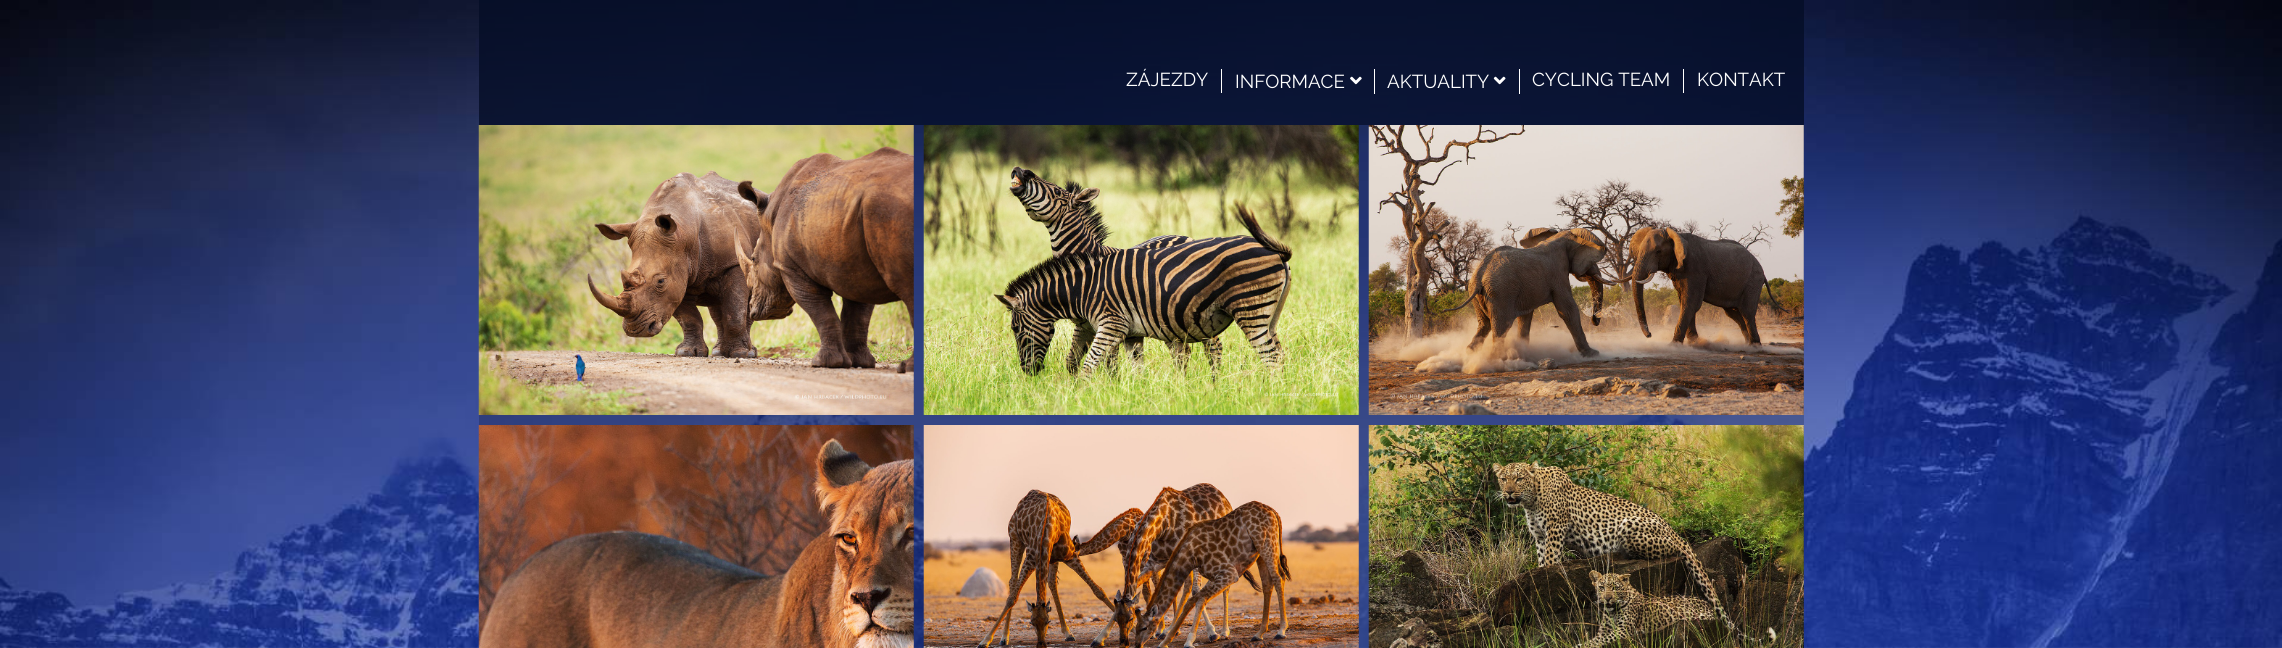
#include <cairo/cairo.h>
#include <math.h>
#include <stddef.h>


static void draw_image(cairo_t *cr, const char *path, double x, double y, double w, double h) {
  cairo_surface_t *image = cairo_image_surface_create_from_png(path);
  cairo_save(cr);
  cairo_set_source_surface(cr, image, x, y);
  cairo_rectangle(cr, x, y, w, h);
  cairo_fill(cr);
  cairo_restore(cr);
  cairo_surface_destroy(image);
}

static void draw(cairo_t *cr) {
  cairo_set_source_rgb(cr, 1, 1, 1);
  cairo_paint(cr);
  draw_image(cr, "images/1.png", 0, 0, 2282, 648);
  cairo_set_source_rgba(cr, 0, 0, 0, 0.2);
  cairo_rectangle(cr, 479, 0, 1325, 648);
  cairo_fill(cr);
  cairo_set_source_rgba(cr, 5 / 255.0, 14 / 255.0, 41 / 255.0, 0.75);
  cairo_rectangle(cr, 479, 0, 1325, 125);
  cairo_fill(cr);
  cairo_set_source_rgb(cr, 1, 1, 1);
  cairo_rectangle(cr, 1221, 69, 1, 24);
  cairo_fill(cr);
  cairo_rectangle(cr, 1374, 69, 1, 25);
  cairo_fill(cr);
  draw_image(cr, "images/2.png", 1350, 76, 12, 9);
  cairo_rectangle(cr, 1519, 69, 1, 25);
  cairo_fill(cr);
  draw_image(cr, "images/3.png", 1493, 76, 13, 9);
  cairo_rectangle(cr, 1683, 69, 1, 24);
  cairo_fill(cr);
  draw_image(cr, "images/4.png", 478, 125, 436, 290);
  draw_image(cr, "images/5.png", 923, 125, 436, 290);
  draw_image(cr, "images/6.png", 1368, 125, 436, 290);
  draw_image(cr, "images/7.png", 478, 425, 436, 223);
  draw_image(cr, "images/8.png", 923, 425, 436, 223);
  draw_image(cr, "images/9.png", 1368, 425, 436, 223);
  cairo_select_font_face(cr, "Raleway", CAIRO_FONT_SLANT_NORMAL, CAIRO_FONT_WEIGHT_NORMAL);
  cairo_set_font_size(cr, 18.75);
  cairo_move_to(cr, 1126, 86);
  cairo_show_text(cr, "ZÁJEZDY");
  cairo_move_to(cr, 1235, 88);
  cairo_show_text(cr, "INFORMACE");
  cairo_move_to(cr, 1387, 88);
  cairo_show_text(cr, "AKTUALITY");
  cairo_move_to(cr, 1532, 86);
  cairo_show_text(cr, "CYCLING TEAM");
  cairo_move_to(cr, 1697, 86);
  cairo_show_text(cr, "KONTAKT");
}

int main(void) {
  cairo_surface_t *surface = cairo_image_surface_create(CAIRO_FORMAT_RGB24, 2282, 648);
  cairo_t *cr = cairo_create(surface);
  cairo_font_options_t *options = cairo_font_options_create();
  cairo_font_options_set_hint_metrics(options, CAIRO_HINT_METRICS_OFF);
  cairo_font_options_set_hint_style(options, CAIRO_HINT_STYLE_NONE);
  cairo_set_font_options(cr, options);
  cairo_set_miter_limit(cr, 4);
  draw(cr);
  cairo_surface_write_to_png(surface, "out.png");
  cairo_font_options_destroy(options);
  cairo_destroy(cr);
  cairo_surface_destroy(surface);
  return 0;
}
